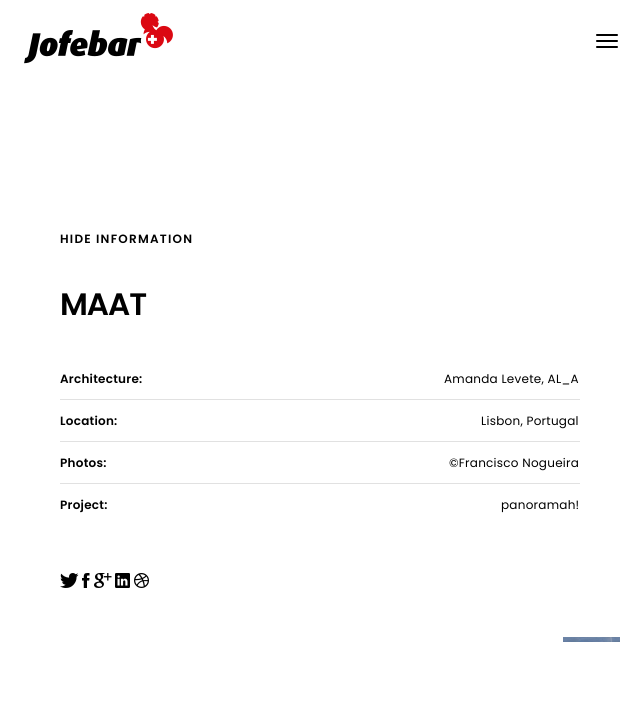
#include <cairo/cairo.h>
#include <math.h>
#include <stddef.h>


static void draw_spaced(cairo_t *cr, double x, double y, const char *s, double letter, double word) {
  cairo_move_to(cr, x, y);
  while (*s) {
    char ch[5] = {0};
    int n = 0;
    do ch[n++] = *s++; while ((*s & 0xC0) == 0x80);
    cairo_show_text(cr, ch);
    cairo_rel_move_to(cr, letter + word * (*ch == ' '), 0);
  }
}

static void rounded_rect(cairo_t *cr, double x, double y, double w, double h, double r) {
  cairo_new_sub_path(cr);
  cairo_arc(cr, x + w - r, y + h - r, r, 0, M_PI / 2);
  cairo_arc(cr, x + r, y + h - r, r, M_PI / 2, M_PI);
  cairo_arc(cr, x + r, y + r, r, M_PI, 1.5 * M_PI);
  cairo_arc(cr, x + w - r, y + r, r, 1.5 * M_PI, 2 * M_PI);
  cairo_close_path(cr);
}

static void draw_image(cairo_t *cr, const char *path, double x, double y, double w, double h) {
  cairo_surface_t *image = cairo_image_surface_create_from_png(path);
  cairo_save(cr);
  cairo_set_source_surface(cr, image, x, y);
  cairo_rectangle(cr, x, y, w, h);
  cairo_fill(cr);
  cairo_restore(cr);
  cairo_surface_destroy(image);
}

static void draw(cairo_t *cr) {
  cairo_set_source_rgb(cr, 1, 1, 1);
  cairo_paint(cr);
  draw_image(cr, "images/1.png", 24, 13, 149, 51);
  cairo_set_source_rgb(cr, 0, 0, 0);
  rounded_rect(cr, 596, 34, 22, 2, 1);
  cairo_fill(cr);
  rounded_rect(cr, 596, 40, 22, 2, 1);
  cairo_fill(cr);
  rounded_rect(cr, 596, 46, 22, 2, 1);
  cairo_fill(cr);
  cairo_set_source_rgb(cr, 225 / 255.0, 225 / 255.0, 225 / 255.0);
  cairo_rectangle(cr, 60, 399, 520, 1);
  cairo_fill(cr);
  cairo_rectangle(cr, 60, 441, 520, 1);
  cairo_fill(cr);
  cairo_rectangle(cr, 60, 483, 520, 1);
  cairo_fill(cr);
  draw_image(cr, "images/2.png", 60, 573, 19, 15);
  draw_image(cr, "images/3.png", 82, 573, 8, 15);
  draw_image(cr, "images/4.png", 94, 573, 18, 15);
  draw_image(cr, "images/5.png", 115, 573, 15, 15);
  draw_image(cr, "images/6.png", 134, 573, 15, 15);
  draw_image(cr, "images/7.png", 563, 637, 57, 5);
  cairo_select_font_face(cr, "Poppins SemiBold", CAIRO_FONT_SLANT_NORMAL, CAIRO_FONT_WEIGHT_NORMAL);
  cairo_set_font_size(cr, 12);
  cairo_set_source_rgb(cr, 0, 0, 0);
  draw_spaced(cr, 60, 243, "HIDE INFORMATION", 1.25, 0);
  cairo_set_font_size(cr, 31);
  draw_spaced(cr, 60, 315, "MAAT", -1, 0);
  cairo_set_font_size(cr, 12);
  draw_spaced(cr, 60, 383, "Architecture:", 0.25, 0);
  cairo_select_font_face(cr, "Poppins", CAIRO_FONT_SLANT_NORMAL, CAIRO_FONT_WEIGHT_NORMAL);
  draw_spaced(cr, 444, 383, "Amanda Levete, AL_A", 0.25, 0);
  cairo_select_font_face(cr, "Poppins SemiBold", CAIRO_FONT_SLANT_NORMAL, CAIRO_FONT_WEIGHT_NORMAL);
  draw_spaced(cr, 60, 425, "Location:", 0.25, 0);
  cairo_select_font_face(cr, "Poppins", CAIRO_FONT_SLANT_NORMAL, CAIRO_FONT_WEIGHT_NORMAL);
  draw_spaced(cr, 481, 425, "Lisbon, Portugal", 0.25, 0);
  cairo_select_font_face(cr, "Poppins SemiBold", CAIRO_FONT_SLANT_NORMAL, CAIRO_FONT_WEIGHT_NORMAL);
  draw_spaced(cr, 60, 467, "Photos:", 0.25, 0);
  cairo_select_font_face(cr, "Poppins", CAIRO_FONT_SLANT_NORMAL, CAIRO_FONT_WEIGHT_NORMAL);
  draw_spaced(cr, 449, 467, "©Francisco Nogueira", 0.25, 0);
  cairo_select_font_face(cr, "Poppins SemiBold", CAIRO_FONT_SLANT_NORMAL, CAIRO_FONT_WEIGHT_NORMAL);
  draw_spaced(cr, 60, 509, "Project:", 0.25, 0);
  cairo_select_font_face(cr, "Poppins", CAIRO_FONT_SLANT_NORMAL, CAIRO_FONT_WEIGHT_NORMAL);
  draw_spaced(cr, 501, 509, "panoramah!", 0.25, 0);
}

int main(void) {
  cairo_surface_t *surface = cairo_image_surface_create(CAIRO_FORMAT_RGB24, 640, 712);
  cairo_t *cr = cairo_create(surface);
  cairo_font_options_t *options = cairo_font_options_create();
  cairo_font_options_set_hint_metrics(options, CAIRO_HINT_METRICS_OFF);
  cairo_font_options_set_hint_style(options, CAIRO_HINT_STYLE_NONE);
  cairo_set_font_options(cr, options);
  cairo_set_miter_limit(cr, 4);
  draw(cr);
  cairo_surface_write_to_png(surface, "out.png");
  cairo_font_options_destroy(options);
  cairo_destroy(cr);
  cairo_surface_destroy(surface);
  return 0;
}
